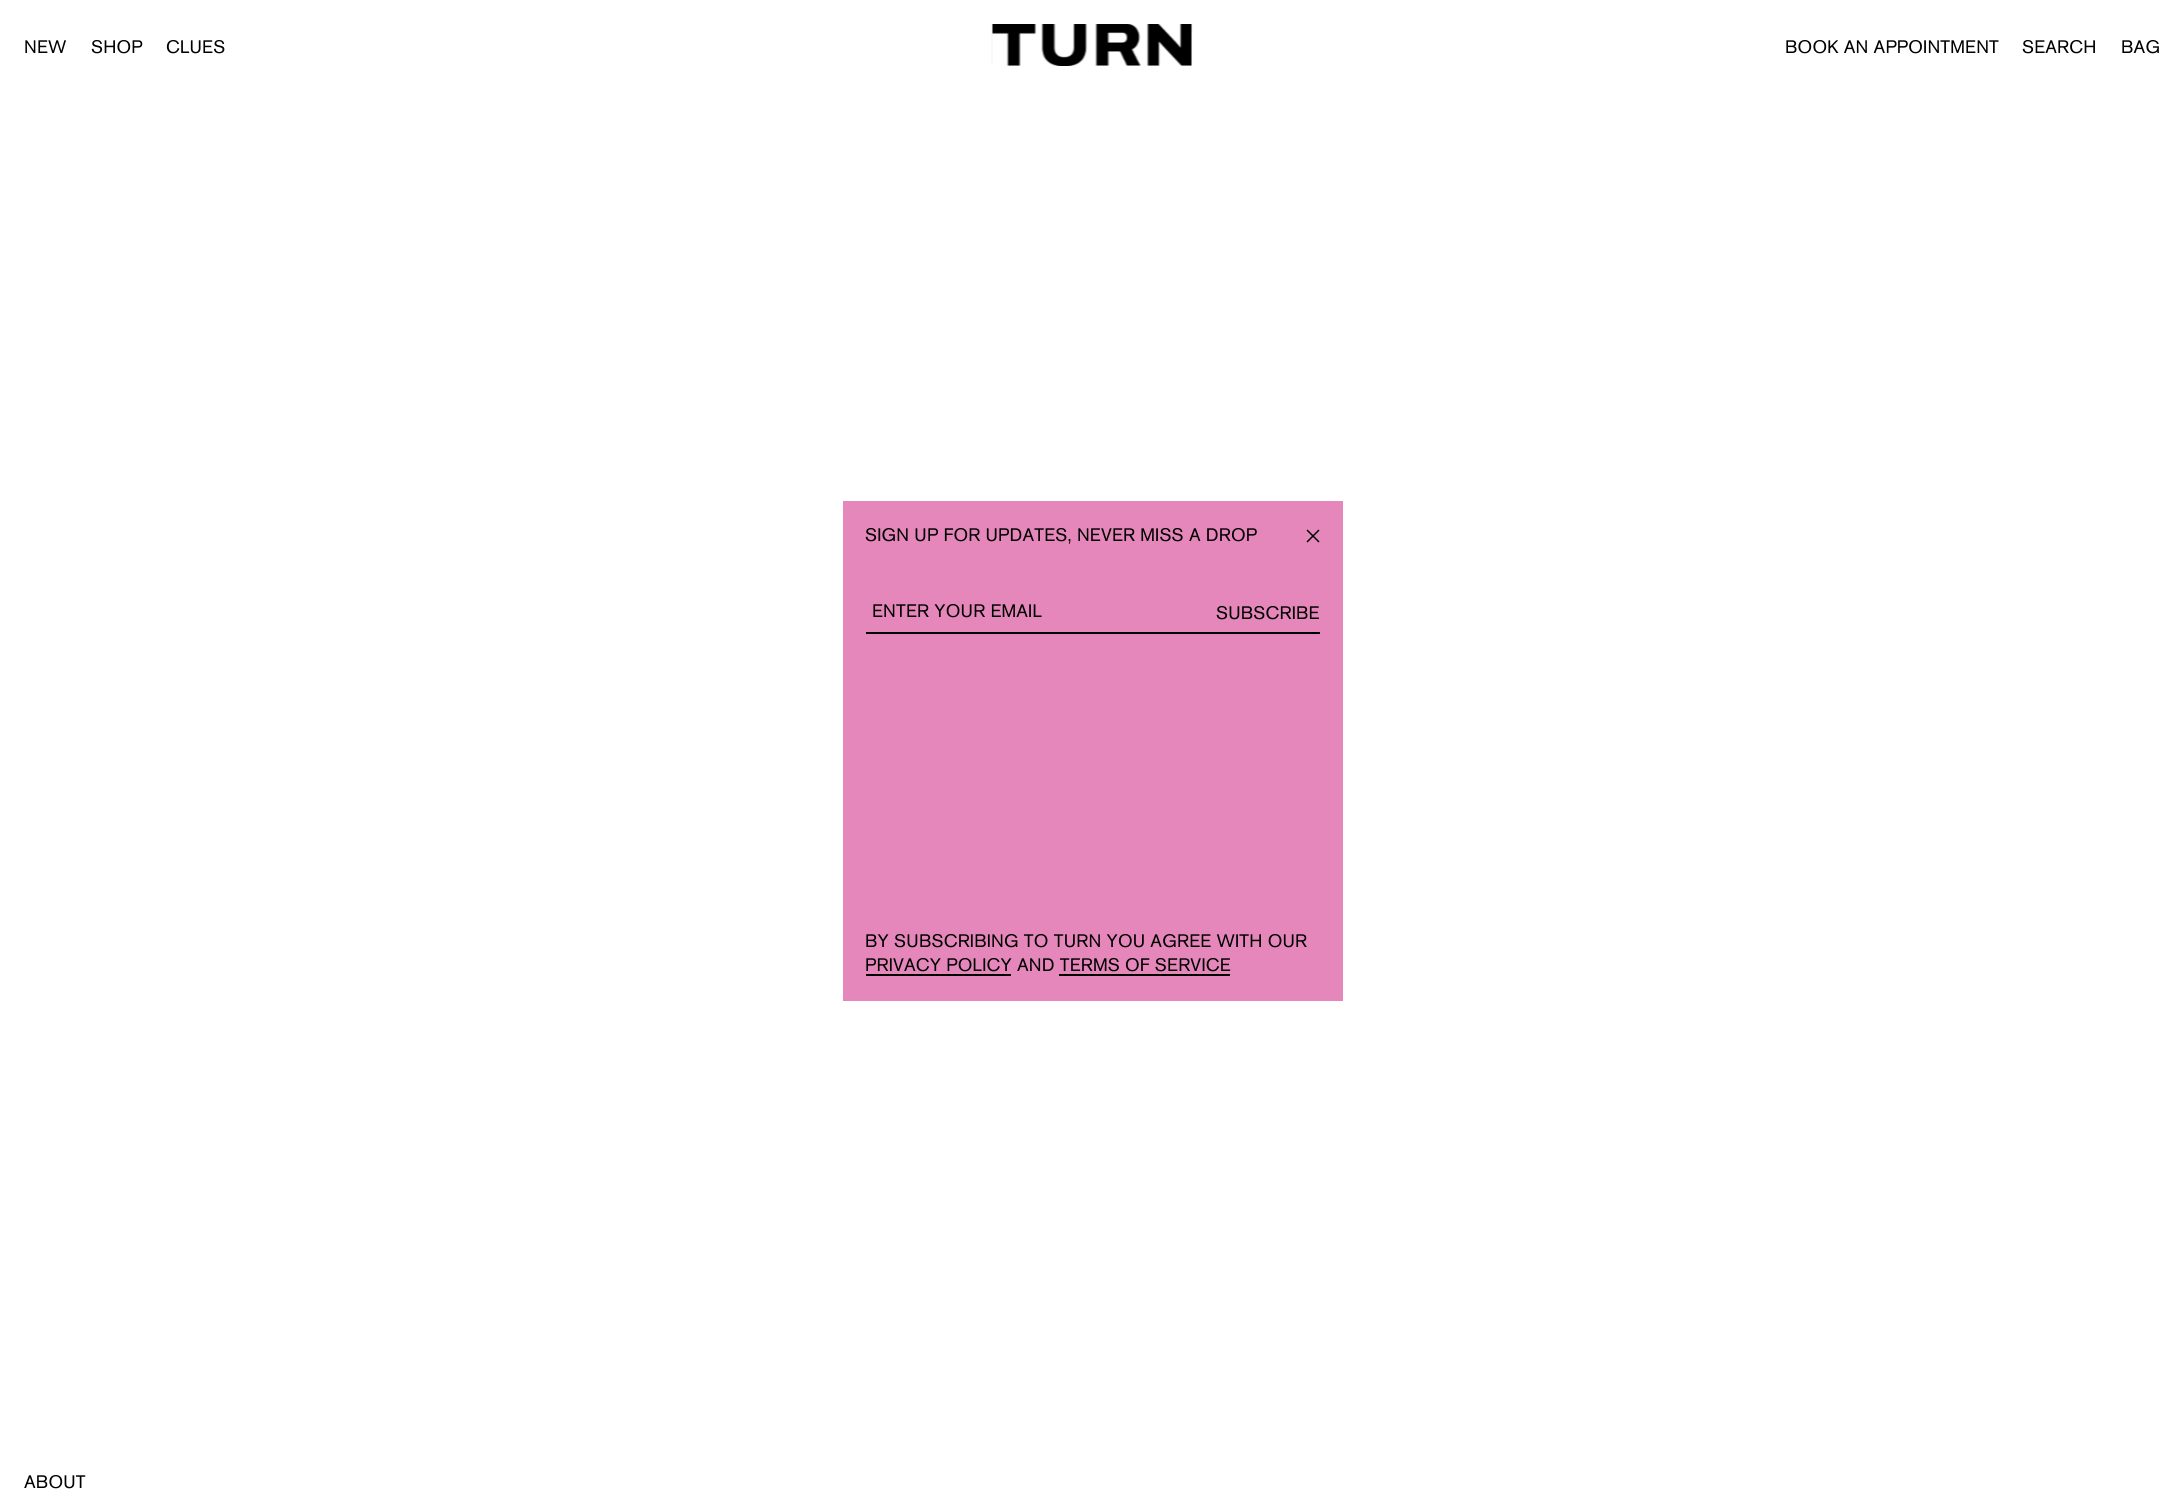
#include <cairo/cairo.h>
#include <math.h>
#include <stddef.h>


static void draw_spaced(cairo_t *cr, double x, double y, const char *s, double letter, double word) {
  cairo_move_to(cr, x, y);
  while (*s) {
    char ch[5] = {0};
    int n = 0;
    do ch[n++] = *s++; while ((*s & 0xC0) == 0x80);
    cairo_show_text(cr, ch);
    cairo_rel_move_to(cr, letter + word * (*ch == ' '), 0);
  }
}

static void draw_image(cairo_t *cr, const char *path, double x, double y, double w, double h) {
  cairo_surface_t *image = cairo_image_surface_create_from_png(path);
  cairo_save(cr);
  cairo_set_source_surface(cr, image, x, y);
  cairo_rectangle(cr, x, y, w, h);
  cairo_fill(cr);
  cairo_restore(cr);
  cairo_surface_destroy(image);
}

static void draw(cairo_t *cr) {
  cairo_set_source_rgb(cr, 1, 1, 1);
  cairo_paint(cr);
  draw_image(cr, "images/1.png", 991, 24, 202, 42);
  cairo_set_source_rgb(cr, 230 / 255.0, 135 / 255.0, 187 / 255.0);
  cairo_rectangle(cr, 843, 501, 500, 500);
  cairo_fill(cr);
  cairo_set_source_rgb(cr, 0, 0, 0);
  cairo_rectangle(cr, 866, 632, 454, 2);
  cairo_fill(cr);
  cairo_new_path(cr);
  cairo_move_to(cr, 1319, 530);
  cairo_line_to(cr, 1307, 542);
  cairo_move_to(cr, 1307, 530);
  cairo_line_to(cr, 1319, 542);
  cairo_set_line_width(cr, 1.5);
  cairo_stroke(cr);
  cairo_rectangle(cr, 866, 974, 145, 2);
  cairo_fill(cr);
  cairo_rectangle(cr, 1059, 974, 171, 2);
  cairo_fill(cr);
  cairo_select_font_face(cr, "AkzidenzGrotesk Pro", CAIRO_FONT_SLANT_NORMAL, CAIRO_FONT_WEIGHT_NORMAL);
  cairo_set_font_size(cr, 18);
  draw_spaced(cr, 24, 53, "NEW", 0.2, 0);
  draw_spaced(cr, 91, 53, "SHOP", 0.2, 0);
  draw_spaced(cr, 166, 53, "CLUES", 0.2, 0);
  draw_spaced(cr, 1785, 53, "BOOK AN APPOINTMENT", 0.2, 0);
  draw_spaced(cr, 2022, 53, "SEARCH", 0.2, 0);
  draw_spaced(cr, 2121, 53, "BAG", 0.2, 0);
  draw_spaced(cr, 865, 541, "SIGN UP FOR UPDATES, NEVER MISS A DROP", 0.2, 0);
  draw_spaced(cr, 872, 617, "ENTER YOUR EMAIL", 0.2, 0);
  draw_spaced(cr, 1216, 619, "SUBSCRIBE", 0.2, 0);
  draw_spaced(cr, 865, 947, "BY SUBSCRIBING TO TURN YOU AGREE WITH OUR", 0.2, 0);
  draw_spaced(cr, 865, 971, "PRIVACY POLICY AND TERMS OF SERVICE", 0.2, 0);
  draw_spaced(cr, 24, 1488, "ABOUT", 0.2, 0);
}

int main(void) {
  cairo_surface_t *surface = cairo_image_surface_create(CAIRO_FORMAT_RGB24, 2184, 1500);
  cairo_t *cr = cairo_create(surface);
  cairo_font_options_t *options = cairo_font_options_create();
  cairo_font_options_set_hint_metrics(options, CAIRO_HINT_METRICS_OFF);
  cairo_font_options_set_hint_style(options, CAIRO_HINT_STYLE_NONE);
  cairo_set_font_options(cr, options);
  cairo_set_miter_limit(cr, 4);
  draw(cr);
  cairo_surface_write_to_png(surface, "out.png");
  cairo_font_options_destroy(options);
  cairo_destroy(cr);
  cairo_surface_destroy(surface);
  return 0;
}
